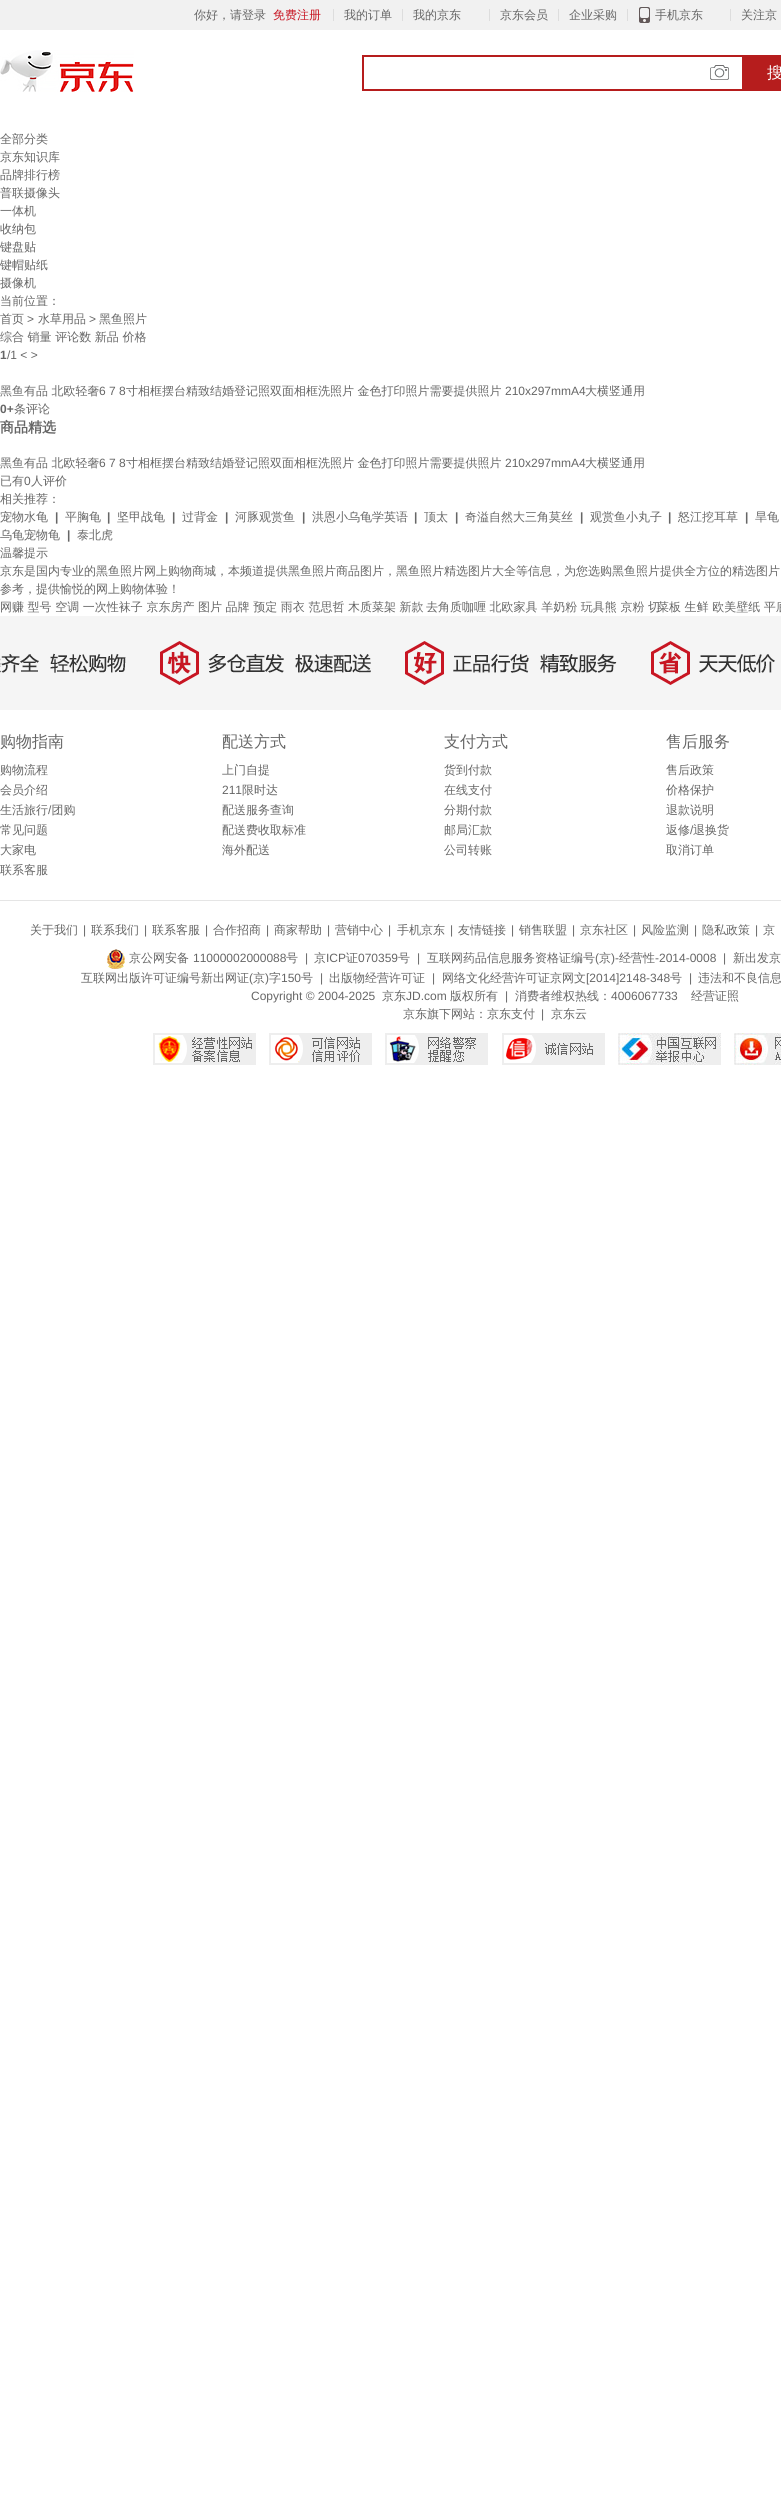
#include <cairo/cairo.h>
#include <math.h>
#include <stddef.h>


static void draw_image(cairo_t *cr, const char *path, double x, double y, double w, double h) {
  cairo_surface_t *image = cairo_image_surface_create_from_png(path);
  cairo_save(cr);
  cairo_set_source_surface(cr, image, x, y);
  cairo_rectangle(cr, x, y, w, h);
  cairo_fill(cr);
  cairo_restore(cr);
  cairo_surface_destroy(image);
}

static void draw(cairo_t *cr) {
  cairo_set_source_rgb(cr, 1, 1, 1);
  cairo_paint(cr);
  cairo_set_source_rgb(cr, 241 / 255.0, 241 / 255.0, 241 / 255.0);
  cairo_rectangle(cr, 0, 0, 781, 30);
  cairo_fill(cr);
  cairo_set_source_rgb(cr, 221 / 255.0, 221 / 255.0, 221 / 255.0);
  cairo_rectangle(cr, 333, 9, 1, 12);
  cairo_fill(cr);
  cairo_rectangle(cr, 402, 9, 1, 12);
  cairo_fill(cr);
  cairo_rectangle(cr, 489, 9, 1, 12);
  cairo_fill(cr);
  cairo_rectangle(cr, 558, 9, 1, 12);
  cairo_fill(cr);
  cairo_rectangle(cr, 627, 9, 1, 12);
  cairo_fill(cr);
  draw_image(cr, "images/1.png", 639, 7, 11, 16);
  cairo_rectangle(cr, 730, 9, 1, 12);
  cairo_fill(cr);
  draw_image(cr, "images/2.png", 0, 50, 134, 42);
  cairo_set_source_rgb(cr, 182 / 255.0, 29 / 255.0, 29 / 255.0);
  cairo_rectangle(cr, 362, 55, 380, 2);
  cairo_fill(cr);
  cairo_rectangle(cr, 362, 89, 380, 2);
  cairo_fill(cr);
  cairo_rectangle(cr, 362, 55, 2, 36);
  cairo_fill(cr);
  cairo_rectangle(cr, 742, 55, 39, 36);
  cairo_fill(cr);
  draw_image(cr, "images/3.png", 710, 65, 19, 15);
  cairo_set_source_rgb(cr, 245 / 255.0, 245 / 255.0, 245 / 255.0);
  cairo_rectangle(cr, 0, 616, 781, 94);
  cairo_fill(cr);
  draw_image(cr, "images/4.png", 0, 653, 126, 20);
  draw_image(cr, "images/5.png", 156, 641, 215, 44);
  draw_image(cr, "images/6.png", 401, 641, 216, 44);
  draw_image(cr, "images/7.png", 646, 641, 135, 44);
  cairo_set_source_rgb(cr, 229 / 255.0, 229 / 255.0, 229 / 255.0);
  cairo_rectangle(cr, 0, 900, 781, 1);
  cairo_fill(cr);
  draw_image(cr, "images/8.png", 107, 949, 18, 20);
  draw_image(cr, "images/9.png", 153, 1033, 103, 32);
  draw_image(cr, "images/10.png", 269, 1033, 103, 32);
  draw_image(cr, "images/11.png", 385, 1033, 103, 32);
  draw_image(cr, "images/12.png", 502, 1033, 103, 32);
  draw_image(cr, "images/13.png", 618, 1033, 103, 32);
  draw_image(cr, "images/14.png", 734, 1033, 47, 32);
  cairo_select_font_face(cr, "WenQuanYi Zen Hei Medium", CAIRO_FONT_SLANT_NORMAL, CAIRO_FONT_WEIGHT_NORMAL);
  cairo_set_font_size(cr, 12);
  cairo_set_source_rgb(cr, 102 / 255.0, 102 / 255.0, 102 / 255.0);
  cairo_move_to(cr, 194, 19);
  cairo_show_text(cr, "你好，请登录");
  cairo_set_source_rgb(cr, 200 / 255.0, 22 / 255.0, 35 / 255.0);
  cairo_move_to(cr, 273, 19);
  cairo_show_text(cr, "免费注册");
  cairo_set_source_rgb(cr, 102 / 255.0, 102 / 255.0, 102 / 255.0);
  cairo_move_to(cr, 344, 19);
  cairo_show_text(cr, "我的订单");
  cairo_move_to(cr, 413, 19);
  cairo_show_text(cr, "我的京东");
  cairo_move_to(cr, 500, 19);
  cairo_show_text(cr, "京东会员");
  cairo_move_to(cr, 569, 19);
  cairo_show_text(cr, "企业采购");
  cairo_move_to(cr, 655, 19);
  cairo_show_text(cr, "手机京东");
  cairo_move_to(cr, 741, 19);
  cairo_show_text(cr, "关注京");
  cairo_set_font_size(cr, 16);
  cairo_set_source_rgb(cr, 1, 1, 1);
  cairo_move_to(cr, 767, 78);
  cairo_show_text(cr, "搜");
  cairo_set_font_size(cr, 12);
  cairo_set_source_rgb(cr, 102 / 255.0, 102 / 255.0, 102 / 255.0);
  cairo_move_to(cr, 0, 143);
  cairo_show_text(cr, "全部分类");
  cairo_move_to(cr, 0, 161);
  cairo_show_text(cr, "京东知识库");
  cairo_move_to(cr, 0, 179);
  cairo_show_text(cr, "品牌排行榜");
  cairo_move_to(cr, 0, 197);
  cairo_show_text(cr, "普联摄像头");
  cairo_move_to(cr, 0, 215);
  cairo_show_text(cr, "一体机");
  cairo_move_to(cr, 0, 233);
  cairo_show_text(cr, "收纳包");
  cairo_move_to(cr, 0, 251);
  cairo_show_text(cr, "键盘贴");
  cairo_move_to(cr, 0, 269);
  cairo_show_text(cr, "键帽贴纸");
  cairo_move_to(cr, 0, 287);
  cairo_show_text(cr, "摄像机");
  cairo_move_to(cr, 0, 305);
  cairo_show_text(cr, "当前位置：");
  cairo_move_to(cr, 0, 323);
  cairo_show_text(cr, "首页");
  cairo_select_font_face(cr, "Liberation Sans", CAIRO_FONT_SLANT_NORMAL, CAIRO_FONT_WEIGHT_NORMAL);
  cairo_move_to(cr, 27, 323);
  cairo_show_text(cr, ">");
  cairo_select_font_face(cr, "WenQuanYi Zen Hei Medium", CAIRO_FONT_SLANT_NORMAL, CAIRO_FONT_WEIGHT_NORMAL);
  cairo_move_to(cr, 38, 323);
  cairo_show_text(cr, "水草用品");
  cairo_select_font_face(cr, "Liberation Sans", CAIRO_FONT_SLANT_NORMAL, CAIRO_FONT_WEIGHT_NORMAL);
  cairo_move_to(cr, 89, 323);
  cairo_show_text(cr, ">");
  cairo_select_font_face(cr, "WenQuanYi Zen Hei Medium", CAIRO_FONT_SLANT_NORMAL, CAIRO_FONT_WEIGHT_NORMAL);
  cairo_move_to(cr, 99, 323);
  cairo_show_text(cr, "黑鱼照片");
  cairo_move_to(cr, 0, 341);
  cairo_show_text(cr, "综合 销量 评论数 新品 价格");
  cairo_select_font_face(cr, "Liberation Sans", CAIRO_FONT_SLANT_NORMAL, CAIRO_FONT_WEIGHT_BOLD);
  cairo_move_to(cr, 0, 359);
  cairo_show_text(cr, "1");
  cairo_select_font_face(cr, "Liberation Sans", CAIRO_FONT_SLANT_NORMAL, CAIRO_FONT_WEIGHT_NORMAL);
  cairo_move_to(cr, 7, 359);
  cairo_show_text(cr, "/1 < >");
  cairo_select_font_face(cr, "WenQuanYi Zen Hei Medium", CAIRO_FONT_SLANT_NORMAL, CAIRO_FONT_WEIGHT_NORMAL);
  cairo_move_to(cr, 0, 395);
  cairo_show_text(cr, "黑鱼有品 北欧轻奢");
  cairo_select_font_face(cr, "Liberation Sans", CAIRO_FONT_SLANT_NORMAL, CAIRO_FONT_WEIGHT_NORMAL);
  cairo_move_to(cr, 99, 395);
  cairo_show_text(cr, "6 7 8");
  cairo_select_font_face(cr, "WenQuanYi Zen Hei Medium", CAIRO_FONT_SLANT_NORMAL, CAIRO_FONT_WEIGHT_NORMAL);
  cairo_move_to(cr, 126, 395);
  cairo_show_text(cr, "寸相框摆台精致结婚登记照双面相框洗照片 金色打印照片需要提供照片");
  cairo_select_font_face(cr, "Liberation Sans", CAIRO_FONT_SLANT_NORMAL, CAIRO_FONT_WEIGHT_NORMAL);
  cairo_move_to(cr, 505, 395);
  cairo_show_text(cr, "210x297mmA4");
  cairo_select_font_face(cr, "WenQuanYi Zen Hei Medium", CAIRO_FONT_SLANT_NORMAL, CAIRO_FONT_WEIGHT_NORMAL);
  cairo_move_to(cr, 585, 395);
  cairo_show_text(cr, "大横竖通用");
  cairo_select_font_face(cr, "Liberation Sans", CAIRO_FONT_SLANT_NORMAL, CAIRO_FONT_WEIGHT_BOLD);
  cairo_move_to(cr, 0, 413);
  cairo_show_text(cr, "0+");
  cairo_select_font_face(cr, "WenQuanYi Zen Hei Medium", CAIRO_FONT_SLANT_NORMAL, CAIRO_FONT_WEIGHT_NORMAL);
  cairo_move_to(cr, 14, 413);
  cairo_show_text(cr, "条评论");
  cairo_select_font_face(cr, "WenQuanYi Zen Hei", CAIRO_FONT_SLANT_NORMAL, CAIRO_FONT_WEIGHT_BOLD);
  cairo_set_font_size(cr, 14);
  cairo_move_to(cr, 0, 432);
  cairo_show_text(cr, "商品精选");
  cairo_select_font_face(cr, "WenQuanYi Zen Hei Medium", CAIRO_FONT_SLANT_NORMAL, CAIRO_FONT_WEIGHT_NORMAL);
  cairo_set_font_size(cr, 12);
  cairo_move_to(cr, 0, 467);
  cairo_show_text(cr, "黑鱼有品 北欧轻奢");
  cairo_select_font_face(cr, "Liberation Sans", CAIRO_FONT_SLANT_NORMAL, CAIRO_FONT_WEIGHT_NORMAL);
  cairo_move_to(cr, 99, 467);
  cairo_show_text(cr, "6 7 8");
  cairo_select_font_face(cr, "WenQuanYi Zen Hei Medium", CAIRO_FONT_SLANT_NORMAL, CAIRO_FONT_WEIGHT_NORMAL);
  cairo_move_to(cr, 126, 467);
  cairo_show_text(cr, "寸相框摆台精致结婚登记照双面相框洗照片 金色打印照片需要提供照片");
  cairo_select_font_face(cr, "Liberation Sans", CAIRO_FONT_SLANT_NORMAL, CAIRO_FONT_WEIGHT_NORMAL);
  cairo_move_to(cr, 505, 467);
  cairo_show_text(cr, "210x297mmA4");
  cairo_select_font_face(cr, "WenQuanYi Zen Hei Medium", CAIRO_FONT_SLANT_NORMAL, CAIRO_FONT_WEIGHT_NORMAL);
  cairo_move_to(cr, 585, 467);
  cairo_show_text(cr, "大横竖通用");
  cairo_move_to(cr, 0, 485);
  cairo_show_text(cr, "已有");
  cairo_select_font_face(cr, "Liberation Sans", CAIRO_FONT_SLANT_NORMAL, CAIRO_FONT_WEIGHT_NORMAL);
  cairo_move_to(cr, 24, 485);
  cairo_show_text(cr, "0");
  cairo_select_font_face(cr, "WenQuanYi Zen Hei Medium", CAIRO_FONT_SLANT_NORMAL, CAIRO_FONT_WEIGHT_NORMAL);
  cairo_move_to(cr, 31, 485);
  cairo_show_text(cr, "人评价");
  cairo_move_to(cr, 0, 503);
  cairo_show_text(cr, "相关推荐：");
  cairo_move_to(cr, 0, 521);
  cairo_show_text(cr, "宠物水龟");
  cairo_select_font_face(cr, "Liberation Sans", CAIRO_FONT_SLANT_NORMAL, CAIRO_FONT_WEIGHT_BOLD);
  cairo_move_to(cr, 55, 521);
  cairo_show_text(cr, "|");
  cairo_select_font_face(cr, "WenQuanYi Zen Hei Medium", CAIRO_FONT_SLANT_NORMAL, CAIRO_FONT_WEIGHT_NORMAL);
  cairo_move_to(cr, 65, 521);
  cairo_show_text(cr, "平胸龟");
  cairo_select_font_face(cr, "Liberation Sans", CAIRO_FONT_SLANT_NORMAL, CAIRO_FONT_WEIGHT_BOLD);
  cairo_move_to(cr, 107, 521);
  cairo_show_text(cr, "|");
  cairo_select_font_face(cr, "WenQuanYi Zen Hei Medium", CAIRO_FONT_SLANT_NORMAL, CAIRO_FONT_WEIGHT_NORMAL);
  cairo_move_to(cr, 117, 521);
  cairo_show_text(cr, "坚甲战龟");
  cairo_select_font_face(cr, "Liberation Sans", CAIRO_FONT_SLANT_NORMAL, CAIRO_FONT_WEIGHT_BOLD);
  cairo_move_to(cr, 172, 521);
  cairo_show_text(cr, "|");
  cairo_select_font_face(cr, "WenQuanYi Zen Hei Medium", CAIRO_FONT_SLANT_NORMAL, CAIRO_FONT_WEIGHT_NORMAL);
  cairo_move_to(cr, 182, 521);
  cairo_show_text(cr, "过背金");
  cairo_select_font_face(cr, "Liberation Sans", CAIRO_FONT_SLANT_NORMAL, CAIRO_FONT_WEIGHT_BOLD);
  cairo_move_to(cr, 225, 521);
  cairo_show_text(cr, "|");
  cairo_select_font_face(cr, "WenQuanYi Zen Hei Medium", CAIRO_FONT_SLANT_NORMAL, CAIRO_FONT_WEIGHT_NORMAL);
  cairo_move_to(cr, 235, 521);
  cairo_show_text(cr, "河豚观赏鱼");
  cairo_select_font_face(cr, "Liberation Sans", CAIRO_FONT_SLANT_NORMAL, CAIRO_FONT_WEIGHT_BOLD);
  cairo_move_to(cr, 302, 521);
  cairo_show_text(cr, "|");
  cairo_select_font_face(cr, "WenQuanYi Zen Hei Medium", CAIRO_FONT_SLANT_NORMAL, CAIRO_FONT_WEIGHT_NORMAL);
  cairo_move_to(cr, 312, 521);
  cairo_show_text(cr, "洪恩小乌龟学英语");
  cairo_select_font_face(cr, "Liberation Sans", CAIRO_FONT_SLANT_NORMAL, CAIRO_FONT_WEIGHT_BOLD);
  cairo_move_to(cr, 414, 521);
  cairo_show_text(cr, "|");
  cairo_select_font_face(cr, "WenQuanYi Zen Hei Medium", CAIRO_FONT_SLANT_NORMAL, CAIRO_FONT_WEIGHT_NORMAL);
  cairo_move_to(cr, 424, 521);
  cairo_show_text(cr, "顶太");
  cairo_select_font_face(cr, "Liberation Sans", CAIRO_FONT_SLANT_NORMAL, CAIRO_FONT_WEIGHT_BOLD);
  cairo_move_to(cr, 455, 521);
  cairo_show_text(cr, "|");
  cairo_select_font_face(cr, "WenQuanYi Zen Hei Medium", CAIRO_FONT_SLANT_NORMAL, CAIRO_FONT_WEIGHT_NORMAL);
  cairo_move_to(cr, 465, 521);
  cairo_show_text(cr, "奇溢自然大三角莫丝");
  cairo_select_font_face(cr, "Liberation Sans", CAIRO_FONT_SLANT_NORMAL, CAIRO_FONT_WEIGHT_BOLD);
  cairo_move_to(cr, 580, 521);
  cairo_show_text(cr, "|");
  cairo_select_font_face(cr, "WenQuanYi Zen Hei Medium", CAIRO_FONT_SLANT_NORMAL, CAIRO_FONT_WEIGHT_NORMAL);
  cairo_move_to(cr, 590, 521);
  cairo_show_text(cr, "观赏鱼小丸子");
  cairo_select_font_face(cr, "Liberation Sans", CAIRO_FONT_SLANT_NORMAL, CAIRO_FONT_WEIGHT_BOLD);
  cairo_move_to(cr, 668, 521);
  cairo_show_text(cr, "|");
  cairo_select_font_face(cr, "WenQuanYi Zen Hei Medium", CAIRO_FONT_SLANT_NORMAL, CAIRO_FONT_WEIGHT_NORMAL);
  cairo_move_to(cr, 678, 521);
  cairo_show_text(cr, "怒江挖耳草");
  cairo_select_font_face(cr, "Liberation Sans", CAIRO_FONT_SLANT_NORMAL, CAIRO_FONT_WEIGHT_BOLD);
  cairo_move_to(cr, 745, 521);
  cairo_show_text(cr, "|");
  cairo_select_font_face(cr, "WenQuanYi Zen Hei Medium", CAIRO_FONT_SLANT_NORMAL, CAIRO_FONT_WEIGHT_NORMAL);
  cairo_move_to(cr, 755, 521);
  cairo_show_text(cr, "旱龟");
  cairo_move_to(cr, 0, 539);
  cairo_show_text(cr, "乌龟宠物龟");
  cairo_select_font_face(cr, "Liberation Sans", CAIRO_FONT_SLANT_NORMAL, CAIRO_FONT_WEIGHT_BOLD);
  cairo_move_to(cr, 67, 539);
  cairo_show_text(cr, "|");
  cairo_select_font_face(cr, "WenQuanYi Zen Hei Medium", CAIRO_FONT_SLANT_NORMAL, CAIRO_FONT_WEIGHT_NORMAL);
  cairo_move_to(cr, 77, 539);
  cairo_show_text(cr, "泰北虎");
  cairo_move_to(cr, 0, 557);
  cairo_show_text(cr, "温馨提示");
  cairo_move_to(cr, 0, 575);
  cairo_show_text(cr, "京东是国内专业的黑鱼照片网上购物商城，本频道提供黑鱼照片商品图片，黑鱼照片精选图片大全等信息，为您选购黑鱼照片提供全方位的精选图片");
  cairo_move_to(cr, 0, 593);
  cairo_show_text(cr, "参考，提供愉悦的网上购物体验！");
  cairo_move_to(cr, 0, 611);
  cairo_show_text(cr, "网赚 型号 空调 一次性袜子 京东房产 图片 品牌 预定 雨衣 范思哲 木质菜架 新款");
  cairo_move_to(cr, 426, 611);
  cairo_show_text(cr, "去角质咖喱 北欧家具 羊奶粉 玩具熊 京粉 切");
  cairo_move_to(cr, 657, 611);
  cairo_show_text(cr, "菜板 生鲜 欧美壁纸 平底");
  cairo_set_font_size(cr, 16);
  cairo_move_to(cr, 0, 747);
  cairo_show_text(cr, "购物指南");
  cairo_set_font_size(cr, 12);
  cairo_move_to(cr, 0, 774);
  cairo_show_text(cr, "购物流程");
  cairo_move_to(cr, 0, 794);
  cairo_show_text(cr, "会员介绍");
  cairo_move_to(cr, 0, 814);
  cairo_show_text(cr, "生活旅行 团购");
  cairo_select_font_face(cr, "Liberation Sans", CAIRO_FONT_SLANT_NORMAL, CAIRO_FONT_WEIGHT_NORMAL);
  cairo_move_to(cr, 48, 814);
  cairo_show_text(cr, "/");
  cairo_select_font_face(cr, "WenQuanYi Zen Hei Medium", CAIRO_FONT_SLANT_NORMAL, CAIRO_FONT_WEIGHT_NORMAL);
  cairo_move_to(cr, 0, 834);
  cairo_show_text(cr, "常见问题");
  cairo_move_to(cr, 0, 854);
  cairo_show_text(cr, "大家电");
  cairo_move_to(cr, 0, 874);
  cairo_show_text(cr, "联系客服");
  cairo_set_font_size(cr, 16);
  cairo_move_to(cr, 222, 747);
  cairo_show_text(cr, "配送方式");
  cairo_set_font_size(cr, 12);
  cairo_move_to(cr, 222, 774);
  cairo_show_text(cr, "上门自提");
  cairo_select_font_face(cr, "Liberation Sans", CAIRO_FONT_SLANT_NORMAL, CAIRO_FONT_WEIGHT_NORMAL);
  cairo_move_to(cr, 222, 794);
  cairo_show_text(cr, "211");
  cairo_select_font_face(cr, "WenQuanYi Zen Hei Medium", CAIRO_FONT_SLANT_NORMAL, CAIRO_FONT_WEIGHT_NORMAL);
  cairo_move_to(cr, 242, 794);
  cairo_show_text(cr, "限时达");
  cairo_move_to(cr, 222, 814);
  cairo_show_text(cr, "配送服务查询");
  cairo_move_to(cr, 222, 834);
  cairo_show_text(cr, "配送费收取标准");
  cairo_move_to(cr, 222, 854);
  cairo_show_text(cr, "海外配送");
  cairo_set_font_size(cr, 16);
  cairo_move_to(cr, 444, 747);
  cairo_show_text(cr, "支付方式");
  cairo_set_font_size(cr, 12);
  cairo_move_to(cr, 444, 774);
  cairo_show_text(cr, "货到付款");
  cairo_move_to(cr, 444, 794);
  cairo_show_text(cr, "在线支付");
  cairo_move_to(cr, 444, 814);
  cairo_show_text(cr, "分期付款");
  cairo_move_to(cr, 444, 834);
  cairo_show_text(cr, "邮局汇款");
  cairo_move_to(cr, 444, 854);
  cairo_show_text(cr, "公司转账");
  cairo_set_font_size(cr, 16);
  cairo_move_to(cr, 666, 747);
  cairo_show_text(cr, "售后服务");
  cairo_set_font_size(cr, 12);
  cairo_move_to(cr, 666, 774);
  cairo_show_text(cr, "售后政策");
  cairo_move_to(cr, 666, 794);
  cairo_show_text(cr, "价格保护");
  cairo_move_to(cr, 666, 814);
  cairo_show_text(cr, "退款说明");
  cairo_move_to(cr, 666, 834);
  cairo_show_text(cr, "返修");
  cairo_select_font_face(cr, "Liberation Sans", CAIRO_FONT_SLANT_NORMAL, CAIRO_FONT_WEIGHT_NORMAL);
  cairo_move_to(cr, 690, 834);
  cairo_show_text(cr, "/");
  cairo_select_font_face(cr, "WenQuanYi Zen Hei Medium", CAIRO_FONT_SLANT_NORMAL, CAIRO_FONT_WEIGHT_NORMAL);
  cairo_move_to(cr, 693, 834);
  cairo_show_text(cr, "退换货");
  cairo_move_to(cr, 666, 854);
  cairo_show_text(cr, "取消订单");
  cairo_move_to(cr, 30, 934);
  cairo_show_text(cr, "关于我们");
  cairo_select_font_face(cr, "Liberation Sans", CAIRO_FONT_SLANT_NORMAL, CAIRO_FONT_WEIGHT_NORMAL);
  cairo_move_to(cr, 83, 934);
  cairo_show_text(cr, "|");
  cairo_select_font_face(cr, "WenQuanYi Zen Hei Medium", CAIRO_FONT_SLANT_NORMAL, CAIRO_FONT_WEIGHT_NORMAL);
  cairo_move_to(cr, 91, 934);
  cairo_show_text(cr, "联系我们");
  cairo_select_font_face(cr, "Liberation Sans", CAIRO_FONT_SLANT_NORMAL, CAIRO_FONT_WEIGHT_NORMAL);
  cairo_move_to(cr, 144, 934);
  cairo_show_text(cr, "|");
  cairo_select_font_face(cr, "WenQuanYi Zen Hei Medium", CAIRO_FONT_SLANT_NORMAL, CAIRO_FONT_WEIGHT_NORMAL);
  cairo_move_to(cr, 152, 934);
  cairo_show_text(cr, "联系客服");
  cairo_select_font_face(cr, "Liberation Sans", CAIRO_FONT_SLANT_NORMAL, CAIRO_FONT_WEIGHT_NORMAL);
  cairo_move_to(cr, 205, 934);
  cairo_show_text(cr, "|");
  cairo_select_font_face(cr, "WenQuanYi Zen Hei Medium", CAIRO_FONT_SLANT_NORMAL, CAIRO_FONT_WEIGHT_NORMAL);
  cairo_move_to(cr, 213, 934);
  cairo_show_text(cr, "合作招商");
  cairo_select_font_face(cr, "Liberation Sans", CAIRO_FONT_SLANT_NORMAL, CAIRO_FONT_WEIGHT_NORMAL);
  cairo_move_to(cr, 266, 934);
  cairo_show_text(cr, "|");
  cairo_select_font_face(cr, "WenQuanYi Zen Hei Medium", CAIRO_FONT_SLANT_NORMAL, CAIRO_FONT_WEIGHT_NORMAL);
  cairo_move_to(cr, 274, 934);
  cairo_show_text(cr, "商家帮助");
  cairo_select_font_face(cr, "Liberation Sans", CAIRO_FONT_SLANT_NORMAL, CAIRO_FONT_WEIGHT_NORMAL);
  cairo_move_to(cr, 327, 934);
  cairo_show_text(cr, "|");
  cairo_select_font_face(cr, "WenQuanYi Zen Hei Medium", CAIRO_FONT_SLANT_NORMAL, CAIRO_FONT_WEIGHT_NORMAL);
  cairo_move_to(cr, 335, 934);
  cairo_show_text(cr, "营销中心");
  cairo_select_font_face(cr, "Liberation Sans", CAIRO_FONT_SLANT_NORMAL, CAIRO_FONT_WEIGHT_NORMAL);
  cairo_move_to(cr, 388, 934);
  cairo_show_text(cr, "|");
  cairo_select_font_face(cr, "WenQuanYi Zen Hei Medium", CAIRO_FONT_SLANT_NORMAL, CAIRO_FONT_WEIGHT_NORMAL);
  cairo_move_to(cr, 397, 934);
  cairo_show_text(cr, "手机京东");
  cairo_select_font_face(cr, "Liberation Sans", CAIRO_FONT_SLANT_NORMAL, CAIRO_FONT_WEIGHT_NORMAL);
  cairo_move_to(cr, 450, 934);
  cairo_show_text(cr, "|");
  cairo_select_font_face(cr, "WenQuanYi Zen Hei Medium", CAIRO_FONT_SLANT_NORMAL, CAIRO_FONT_WEIGHT_NORMAL);
  cairo_move_to(cr, 458, 934);
  cairo_show_text(cr, "友情链接");
  cairo_select_font_face(cr, "Liberation Sans", CAIRO_FONT_SLANT_NORMAL, CAIRO_FONT_WEIGHT_NORMAL);
  cairo_move_to(cr, 511, 934);
  cairo_show_text(cr, "|");
  cairo_select_font_face(cr, "WenQuanYi Zen Hei Medium", CAIRO_FONT_SLANT_NORMAL, CAIRO_FONT_WEIGHT_NORMAL);
  cairo_move_to(cr, 519, 934);
  cairo_show_text(cr, "销售联盟");
  cairo_select_font_face(cr, "Liberation Sans", CAIRO_FONT_SLANT_NORMAL, CAIRO_FONT_WEIGHT_NORMAL);
  cairo_move_to(cr, 572, 934);
  cairo_show_text(cr, "|");
  cairo_select_font_face(cr, "WenQuanYi Zen Hei Medium", CAIRO_FONT_SLANT_NORMAL, CAIRO_FONT_WEIGHT_NORMAL);
  cairo_move_to(cr, 580, 934);
  cairo_show_text(cr, "京东社区");
  cairo_select_font_face(cr, "Liberation Sans", CAIRO_FONT_SLANT_NORMAL, CAIRO_FONT_WEIGHT_NORMAL);
  cairo_move_to(cr, 633, 934);
  cairo_show_text(cr, "|");
  cairo_select_font_face(cr, "WenQuanYi Zen Hei Medium", CAIRO_FONT_SLANT_NORMAL, CAIRO_FONT_WEIGHT_NORMAL);
  cairo_move_to(cr, 641, 934);
  cairo_show_text(cr, "风险监测");
  cairo_select_font_face(cr, "Liberation Sans", CAIRO_FONT_SLANT_NORMAL, CAIRO_FONT_WEIGHT_NORMAL);
  cairo_move_to(cr, 694, 934);
  cairo_show_text(cr, "|");
  cairo_select_font_face(cr, "WenQuanYi Zen Hei Medium", CAIRO_FONT_SLANT_NORMAL, CAIRO_FONT_WEIGHT_NORMAL);
  cairo_move_to(cr, 702, 934);
  cairo_show_text(cr, "隐私政策");
  cairo_select_font_face(cr, "Liberation Sans", CAIRO_FONT_SLANT_NORMAL, CAIRO_FONT_WEIGHT_NORMAL);
  cairo_move_to(cr, 755, 934);
  cairo_show_text(cr, "|");
  cairo_select_font_face(cr, "WenQuanYi Zen Hei Medium", CAIRO_FONT_SLANT_NORMAL, CAIRO_FONT_WEIGHT_NORMAL);
  cairo_move_to(cr, 763, 934);
  cairo_show_text(cr, "京");
  cairo_move_to(cr, 129, 962);
  cairo_show_text(cr, "京公网安备");
  cairo_select_font_face(cr, "Liberation Sans", CAIRO_FONT_SLANT_NORMAL, CAIRO_FONT_WEIGHT_NORMAL);
  cairo_move_to(cr, 193, 962);
  cairo_show_text(cr, "11000002000088");
  cairo_select_font_face(cr, "WenQuanYi Zen Hei Medium", CAIRO_FONT_SLANT_NORMAL, CAIRO_FONT_WEIGHT_NORMAL);
  cairo_move_to(cr, 286, 962);
  cairo_show_text(cr, "号");
  cairo_select_font_face(cr, "Liberation Sans", CAIRO_FONT_SLANT_NORMAL, CAIRO_FONT_WEIGHT_NORMAL);
  cairo_move_to(cr, 305, 962);
  cairo_show_text(cr, "|");
  cairo_select_font_face(cr, "WenQuanYi Zen Hei Medium", CAIRO_FONT_SLANT_NORMAL, CAIRO_FONT_WEIGHT_NORMAL);
  cairo_move_to(cr, 314, 962);
  cairo_show_text(cr, "京");
  cairo_select_font_face(cr, "Liberation Sans", CAIRO_FONT_SLANT_NORMAL, CAIRO_FONT_WEIGHT_NORMAL);
  cairo_move_to(cr, 326, 962);
  cairo_show_text(cr, "ICP");
  cairo_select_font_face(cr, "WenQuanYi Zen Hei Medium", CAIRO_FONT_SLANT_NORMAL, CAIRO_FONT_WEIGHT_NORMAL);
  cairo_move_to(cr, 346, 962);
  cairo_show_text(cr, "证");
  cairo_select_font_face(cr, "Liberation Sans", CAIRO_FONT_SLANT_NORMAL, CAIRO_FONT_WEIGHT_NORMAL);
  cairo_move_to(cr, 358, 962);
  cairo_show_text(cr, "070359");
  cairo_select_font_face(cr, "WenQuanYi Zen Hei Medium", CAIRO_FONT_SLANT_NORMAL, CAIRO_FONT_WEIGHT_NORMAL);
  cairo_move_to(cr, 398, 962);
  cairo_show_text(cr, "号");
  cairo_select_font_face(cr, "Liberation Sans", CAIRO_FONT_SLANT_NORMAL, CAIRO_FONT_WEIGHT_NORMAL);
  cairo_move_to(cr, 417, 962);
  cairo_show_text(cr, "|");
  cairo_select_font_face(cr, "WenQuanYi Zen Hei Medium", CAIRO_FONT_SLANT_NORMAL, CAIRO_FONT_WEIGHT_NORMAL);
  cairo_move_to(cr, 427, 962);
  cairo_show_text(cr, "互联网药品信息服务资格证编号");
  cairo_select_font_face(cr, "Liberation Sans", CAIRO_FONT_SLANT_NORMAL, CAIRO_FONT_WEIGHT_NORMAL);
  cairo_move_to(cr, 595, 962);
  cairo_show_text(cr, "(");
  cairo_select_font_face(cr, "WenQuanYi Zen Hei Medium", CAIRO_FONT_SLANT_NORMAL, CAIRO_FONT_WEIGHT_NORMAL);
  cairo_move_to(cr, 599, 962);
  cairo_show_text(cr, "京");
  cairo_select_font_face(cr, "Liberation Sans", CAIRO_FONT_SLANT_NORMAL, CAIRO_FONT_WEIGHT_NORMAL);
  cairo_move_to(cr, 611, 962);
  cairo_show_text(cr, ")-");
  cairo_select_font_face(cr, "WenQuanYi Zen Hei Medium", CAIRO_FONT_SLANT_NORMAL, CAIRO_FONT_WEIGHT_NORMAL);
  cairo_move_to(cr, 619, 962);
  cairo_show_text(cr, "经营性");
  cairo_select_font_face(cr, "Liberation Sans", CAIRO_FONT_SLANT_NORMAL, CAIRO_FONT_WEIGHT_NORMAL);
  cairo_move_to(cr, 655, 962);
  cairo_show_text(cr, "-2014-0008");
  cairo_move_to(cr, 723, 962);
  cairo_show_text(cr, "|");
  cairo_select_font_face(cr, "WenQuanYi Zen Hei Medium", CAIRO_FONT_SLANT_NORMAL, CAIRO_FONT_WEIGHT_NORMAL);
  cairo_move_to(cr, 733, 962);
  cairo_show_text(cr, "新出发京");
  cairo_move_to(cr, 81, 982);
  cairo_show_text(cr, "互联网出版许可证编号新出网证");
  cairo_select_font_face(cr, "Liberation Sans", CAIRO_FONT_SLANT_NORMAL, CAIRO_FONT_WEIGHT_NORMAL);
  cairo_move_to(cr, 249, 982);
  cairo_show_text(cr, "(");
  cairo_select_font_face(cr, "WenQuanYi Zen Hei Medium", CAIRO_FONT_SLANT_NORMAL, CAIRO_FONT_WEIGHT_NORMAL);
  cairo_move_to(cr, 253, 982);
  cairo_show_text(cr, "京");
  cairo_select_font_face(cr, "Liberation Sans", CAIRO_FONT_SLANT_NORMAL, CAIRO_FONT_WEIGHT_NORMAL);
  cairo_move_to(cr, 265, 982);
  cairo_show_text(cr, ")");
  cairo_select_font_face(cr, "WenQuanYi Zen Hei Medium", CAIRO_FONT_SLANT_NORMAL, CAIRO_FONT_WEIGHT_NORMAL);
  cairo_move_to(cr, 269, 982);
  cairo_show_text(cr, "字");
  cairo_select_font_face(cr, "Liberation Sans", CAIRO_FONT_SLANT_NORMAL, CAIRO_FONT_WEIGHT_NORMAL);
  cairo_move_to(cr, 281, 982);
  cairo_show_text(cr, "150");
  cairo_select_font_face(cr, "WenQuanYi Zen Hei Medium", CAIRO_FONT_SLANT_NORMAL, CAIRO_FONT_WEIGHT_NORMAL);
  cairo_move_to(cr, 301, 982);
  cairo_show_text(cr, "号");
  cairo_select_font_face(cr, "Liberation Sans", CAIRO_FONT_SLANT_NORMAL, CAIRO_FONT_WEIGHT_NORMAL);
  cairo_move_to(cr, 320, 982);
  cairo_show_text(cr, "|");
  cairo_select_font_face(cr, "WenQuanYi Zen Hei Medium", CAIRO_FONT_SLANT_NORMAL, CAIRO_FONT_WEIGHT_NORMAL);
  cairo_move_to(cr, 329, 982);
  cairo_show_text(cr, "出版物经营许可证");
  cairo_select_font_face(cr, "Liberation Sans", CAIRO_FONT_SLANT_NORMAL, CAIRO_FONT_WEIGHT_NORMAL);
  cairo_move_to(cr, 432, 982);
  cairo_show_text(cr, "|");
  cairo_select_font_face(cr, "WenQuanYi Zen Hei Medium", CAIRO_FONT_SLANT_NORMAL, CAIRO_FONT_WEIGHT_NORMAL);
  cairo_move_to(cr, 442, 982);
  cairo_show_text(cr, "网络文化经营许可证京网文");
  cairo_select_font_face(cr, "Liberation Sans", CAIRO_FONT_SLANT_NORMAL, CAIRO_FONT_WEIGHT_NORMAL);
  cairo_move_to(cr, 586, 982);
  cairo_show_text(cr, "[2014]2148-348");
  cairo_select_font_face(cr, "WenQuanYi Zen Hei Medium", CAIRO_FONT_SLANT_NORMAL, CAIRO_FONT_WEIGHT_NORMAL);
  cairo_move_to(cr, 670, 982);
  cairo_show_text(cr, "号");
  cairo_select_font_face(cr, "Liberation Sans", CAIRO_FONT_SLANT_NORMAL, CAIRO_FONT_WEIGHT_NORMAL);
  cairo_move_to(cr, 689, 982);
  cairo_show_text(cr, "|");
  cairo_select_font_face(cr, "WenQuanYi Zen Hei Medium", CAIRO_FONT_SLANT_NORMAL, CAIRO_FONT_WEIGHT_NORMAL);
  cairo_move_to(cr, 698, 982);
  cairo_show_text(cr, "违法和不良信息");
  cairo_select_font_face(cr, "Liberation Sans", CAIRO_FONT_SLANT_NORMAL, CAIRO_FONT_WEIGHT_NORMAL);
  cairo_move_to(cr, 251, 1000);
  cairo_show_text(cr, "Copyright © 2004-2025");
  cairo_select_font_face(cr, "WenQuanYi Zen Hei Medium", CAIRO_FONT_SLANT_NORMAL, CAIRO_FONT_WEIGHT_NORMAL);
  cairo_move_to(cr, 382, 1000);
  cairo_show_text(cr, "京东");
  cairo_select_font_face(cr, "Liberation Sans", CAIRO_FONT_SLANT_NORMAL, CAIRO_FONT_WEIGHT_NORMAL);
  cairo_move_to(cr, 406, 1000);
  cairo_show_text(cr, "JD.com");
  cairo_select_font_face(cr, "WenQuanYi Zen Hei Medium", CAIRO_FONT_SLANT_NORMAL, CAIRO_FONT_WEIGHT_NORMAL);
  cairo_move_to(cr, 450, 1000);
  cairo_show_text(cr, "版权所有");
  cairo_select_font_face(cr, "Liberation Sans", CAIRO_FONT_SLANT_NORMAL, CAIRO_FONT_WEIGHT_NORMAL);
  cairo_move_to(cr, 505, 1000);
  cairo_show_text(cr, "|");
  cairo_select_font_face(cr, "WenQuanYi Zen Hei Medium", CAIRO_FONT_SLANT_NORMAL, CAIRO_FONT_WEIGHT_NORMAL);
  cairo_move_to(cr, 515, 1000);
  cairo_show_text(cr, "消费者维权热线：");
  cairo_select_font_face(cr, "Liberation Sans", CAIRO_FONT_SLANT_NORMAL, CAIRO_FONT_WEIGHT_NORMAL);
  cairo_move_to(cr, 611, 1000);
  cairo_show_text(cr, "4006067733");
  cairo_select_font_face(cr, "WenQuanYi Zen Hei Medium", CAIRO_FONT_SLANT_NORMAL, CAIRO_FONT_WEIGHT_NORMAL);
  cairo_move_to(cr, 691, 1000);
  cairo_show_text(cr, "经营证照");
  cairo_move_to(cr, 403, 1018);
  cairo_show_text(cr, "京东旗下网站：京东支付");
  cairo_select_font_face(cr, "Liberation Sans", CAIRO_FONT_SLANT_NORMAL, CAIRO_FONT_WEIGHT_NORMAL);
  cairo_move_to(cr, 541, 1018);
  cairo_show_text(cr, "|");
  cairo_select_font_face(cr, "WenQuanYi Zen Hei Medium", CAIRO_FONT_SLANT_NORMAL, CAIRO_FONT_WEIGHT_NORMAL);
  cairo_move_to(cr, 551, 1018);
  cairo_show_text(cr, "京东云");
}

int main(void) {
  cairo_surface_t *surface = cairo_image_surface_create(CAIRO_FORMAT_RGB24, 781, 2513);
  cairo_t *cr = cairo_create(surface);
  cairo_font_options_t *options = cairo_font_options_create();
  cairo_font_options_set_hint_metrics(options, CAIRO_HINT_METRICS_OFF);
  cairo_font_options_set_hint_style(options, CAIRO_HINT_STYLE_NONE);
  cairo_set_font_options(cr, options);
  cairo_set_miter_limit(cr, 4);
  draw(cr);
  cairo_surface_write_to_png(surface, "out.png");
  cairo_font_options_destroy(options);
  cairo_destroy(cr);
  cairo_surface_destroy(surface);
  return 0;
}
